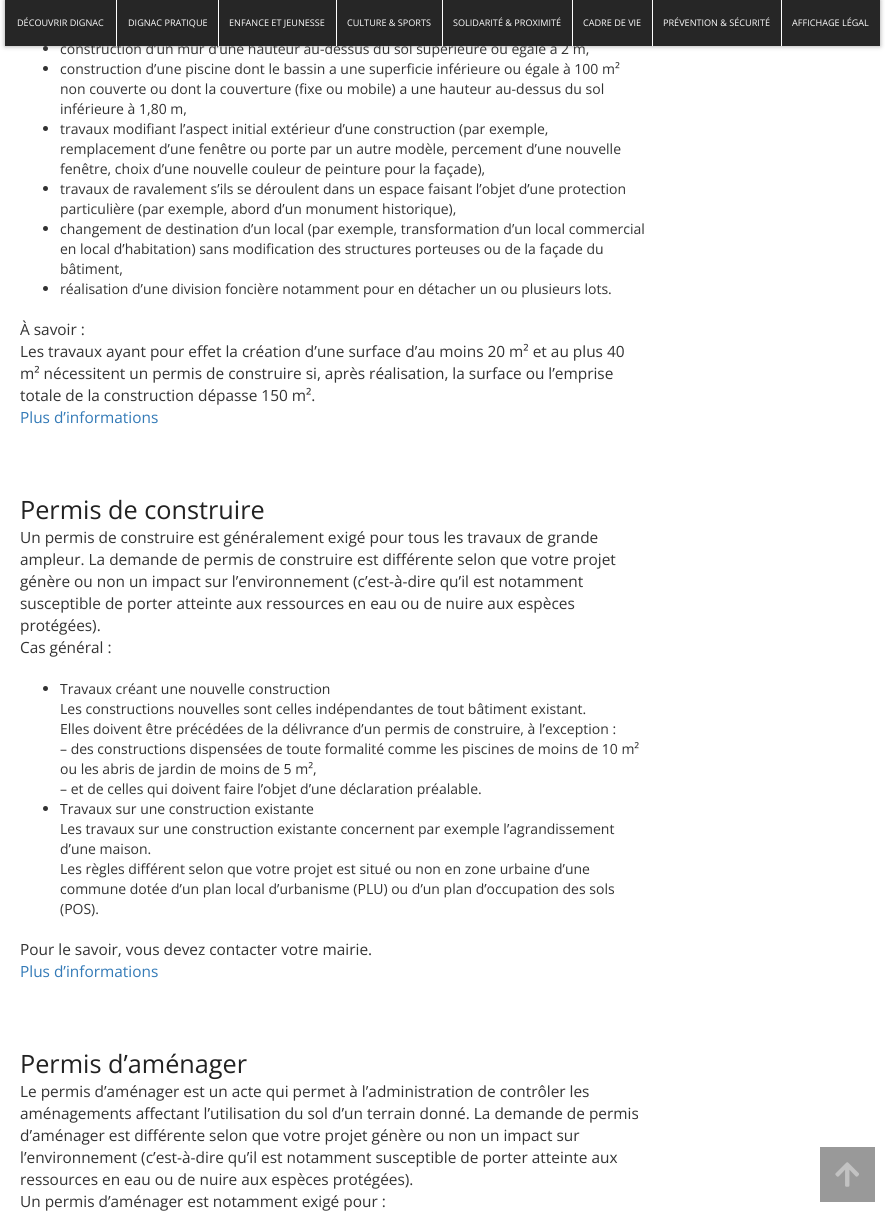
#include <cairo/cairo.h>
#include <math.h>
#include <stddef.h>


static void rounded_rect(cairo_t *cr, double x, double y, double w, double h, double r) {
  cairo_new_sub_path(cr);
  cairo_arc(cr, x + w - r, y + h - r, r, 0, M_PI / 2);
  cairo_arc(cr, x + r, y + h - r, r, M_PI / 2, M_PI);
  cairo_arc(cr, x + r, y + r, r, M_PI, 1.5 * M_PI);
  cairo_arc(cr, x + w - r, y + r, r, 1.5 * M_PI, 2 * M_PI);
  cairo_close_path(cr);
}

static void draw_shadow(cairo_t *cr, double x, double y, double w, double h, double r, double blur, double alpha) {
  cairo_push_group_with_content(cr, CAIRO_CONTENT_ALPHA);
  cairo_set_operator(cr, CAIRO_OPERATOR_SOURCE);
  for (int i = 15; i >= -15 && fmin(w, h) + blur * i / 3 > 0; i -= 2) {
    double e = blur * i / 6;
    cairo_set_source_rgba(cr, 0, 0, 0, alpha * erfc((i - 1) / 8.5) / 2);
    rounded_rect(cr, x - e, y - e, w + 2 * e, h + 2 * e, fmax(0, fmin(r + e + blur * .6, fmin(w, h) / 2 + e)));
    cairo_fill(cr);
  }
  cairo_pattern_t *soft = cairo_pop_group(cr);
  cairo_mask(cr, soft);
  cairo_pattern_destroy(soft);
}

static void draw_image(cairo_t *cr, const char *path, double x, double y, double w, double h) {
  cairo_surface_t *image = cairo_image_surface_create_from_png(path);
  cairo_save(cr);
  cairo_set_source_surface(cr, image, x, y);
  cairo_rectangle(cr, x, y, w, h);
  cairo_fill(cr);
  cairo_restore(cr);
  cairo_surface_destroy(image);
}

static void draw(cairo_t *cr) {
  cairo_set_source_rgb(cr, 1, 1, 1);
  cairo_paint(cr);
  cairo_set_source_rgb(cr, 51 / 255.0, 51 / 255.0, 51 / 255.0);
  cairo_arc(cr, 45.5, 48.5, 2.5, 0, 2 * M_PI);
  cairo_fill(cr);
  cairo_set_source_rgb(cr, 68 / 255.0, 68 / 255.0, 68 / 255.0);
  draw_shadow(cr, 5, 0, 875, 46, 0, 2.5, 0.5);
  cairo_set_source_rgb(cr, 51 / 255.0, 51 / 255.0, 51 / 255.0);
  cairo_arc(cr, 45.5, 68.5, 2.5, 0, 2 * M_PI);
  cairo_fill(cr);
  cairo_arc(cr, 45.5, 128.5, 2.5, 0, 2 * M_PI);
  cairo_fill(cr);
  cairo_arc(cr, 45.5, 188.5, 2.5, 0, 2 * M_PI);
  cairo_fill(cr);
  cairo_arc(cr, 45.5, 228.5, 2.5, 0, 2 * M_PI);
  cairo_fill(cr);
  cairo_arc(cr, 45.5, 288.5, 2.5, 0, 2 * M_PI);
  cairo_fill(cr);
  cairo_arc(cr, 45.5, 688.5, 2.5, 0, 2 * M_PI);
  cairo_fill(cr);
  cairo_arc(cr, 45.5, 808.5, 2.5, 0, 2 * M_PI);
  cairo_fill(cr);
  cairo_set_source_rgb(cr, 153 / 255.0, 153 / 255.0, 153 / 255.0);
  cairo_rectangle(cr, 820, 1147, 55, 55);
  cairo_fill(cr);
  draw_image(cr, "images/1.png", 835, 1162, 24, 25);
  cairo_select_font_face(cr, "Open Sans", CAIRO_FONT_SLANT_NORMAL, CAIRO_FONT_WEIGHT_NORMAL);
  cairo_set_font_size(cr, 14);
  cairo_set_source_rgb(cr, 51 / 255.0, 51 / 255.0, 51 / 255.0);
  cairo_move_to(cr, 60, 54);
  cairo_show_text(cr, "construction d’un mur d’une hauteur au-dessus du sol supérieure ou égale à 2 m,");
  cairo_set_source_rgb(cr, 38 / 255.0, 38 / 255.0, 38 / 255.0);
  cairo_rectangle(cr, 5, 0, 875, 46);
  cairo_fill(cr);
  cairo_set_font_size(cr, 9.1);
  cairo_set_source_rgb(cr, 1, 1, 1);
  cairo_move_to(cr, 792, 26);
  cairo_show_text(cr, "AFFICHAGE LÉGAL");
  cairo_move_to(cr, 663, 26);
  cairo_show_text(cr, "PRÉVENTION & SÉCURITÉ");
  cairo_move_to(cr, 583, 26);
  cairo_show_text(cr, "CADRE DE VIE");
  cairo_move_to(cr, 453, 26);
  cairo_show_text(cr, "SOLIDARITÉ & PROXIMITÉ");
  cairo_move_to(cr, 347, 26);
  cairo_show_text(cr, "CULTURE & SPORTS");
  cairo_move_to(cr, 229, 26);
  cairo_show_text(cr, "ENFANCE ET JEUNESSE");
  cairo_move_to(cr, 128, 26);
  cairo_show_text(cr, "DIGNAC PRATIQUE");
  cairo_move_to(cr, 17, 26);
  cairo_show_text(cr, "DÉCOUVRIR DIGNAC");
  cairo_rectangle(cr, 781, 0, 1, 46);
  cairo_fill(cr);
  cairo_rectangle(cr, 652, 0, 1, 46);
  cairo_fill(cr);
  cairo_rectangle(cr, 572, 0, 1, 46);
  cairo_fill(cr);
  cairo_rectangle(cr, 442, 0, 1, 46);
  cairo_fill(cr);
  cairo_rectangle(cr, 336, 0, 1, 46);
  cairo_fill(cr);
  cairo_rectangle(cr, 218, 0, 1, 46);
  cairo_fill(cr);
  cairo_rectangle(cr, 116, 0, 1, 46);
  cairo_fill(cr);
  cairo_set_font_size(cr, 14);
  cairo_set_source_rgb(cr, 51 / 255.0, 51 / 255.0, 51 / 255.0);
  cairo_move_to(cr, 60, 74);
  cairo_show_text(cr, "construction d’une piscine dont le bassin a une superficie inférieure ou égale à 100 m²");
  cairo_move_to(cr, 60, 94);
  cairo_show_text(cr, "non couverte ou dont la couverture (fixe ou mobile) a une hauteur au-dessus du sol");
  cairo_move_to(cr, 60, 114);
  cairo_show_text(cr, "inférieure à 1,80 m,");
  cairo_move_to(cr, 60, 134);
  cairo_show_text(cr, "travaux modifiant l’aspect initial extérieur d’une construction (par exemple,");
  cairo_move_to(cr, 60, 154);
  cairo_show_text(cr, "remplacement d’une fenêtre ou porte par un autre modèle, percement d’une nouvelle");
  cairo_move_to(cr, 60, 174);
  cairo_show_text(cr, "fenêtre, choix d’une nouvelle couleur de peinture pour la façade),");
  cairo_move_to(cr, 60, 194);
  cairo_show_text(cr, "travaux de ravalement s’ils se déroulent dans un espace faisant l’objet d’une protection");
  cairo_move_to(cr, 60, 214);
  cairo_show_text(cr, "particulière (par exemple, abord d’un monument historique),");
  cairo_move_to(cr, 60, 234);
  cairo_show_text(cr, "changement de destination d’un local (par exemple, transformation d’un local commercial");
  cairo_move_to(cr, 60, 254);
  cairo_show_text(cr, "en local d’habitation) sans modification des structures porteuses ou de la façade du");
  cairo_move_to(cr, 60, 274);
  cairo_show_text(cr, "bâtiment,");
  cairo_move_to(cr, 60, 294);
  cairo_show_text(cr, "réalisation d’une division foncière notamment pour en détacher un ou plusieurs lots.");
  cairo_set_font_size(cr, 15.4);
  cairo_move_to(cr, 20, 335);
  cairo_show_text(cr, "À savoir :");
  cairo_move_to(cr, 20, 357);
  cairo_show_text(cr, "Les travaux ayant pour effet la création d’une surface d’au moins 20 m² et au plus 40");
  cairo_move_to(cr, 20, 379);
  cairo_show_text(cr, "m² nécessitent un permis de construire si, après réalisation, la surface ou l’emprise");
  cairo_move_to(cr, 20, 401);
  cairo_show_text(cr, "totale de la construction dépasse 150 m².");
  cairo_set_source_rgb(cr, 51 / 255.0, 122 / 255.0, 183 / 255.0);
  cairo_move_to(cr, 20, 423);
  cairo_show_text(cr, "Plus d’informations");
  cairo_set_font_size(cr, 25.25);
  cairo_set_source_rgb(cr, 34 / 255.0, 34 / 255.0, 34 / 255.0);
  cairo_move_to(cr, 20, 519);
  cairo_show_text(cr, "Permis de construire");
  cairo_set_font_size(cr, 15.4);
  cairo_set_source_rgb(cr, 51 / 255.0, 51 / 255.0, 51 / 255.0);
  cairo_move_to(cr, 20, 543);
  cairo_show_text(cr, "Un permis de construire est généralement exigé pour tous les travaux de grande");
  cairo_move_to(cr, 20, 565);
  cairo_show_text(cr, "ampleur. La demande de permis de construire est différente selon que votre projet");
  cairo_move_to(cr, 20, 587);
  cairo_show_text(cr, "génère ou non un impact sur l’environnement (c’est-à-dire qu’il est notamment");
  cairo_move_to(cr, 20, 609);
  cairo_show_text(cr, "susceptible de porter atteinte aux ressources en eau ou de nuire aux espèces");
  cairo_move_to(cr, 20, 631);
  cairo_show_text(cr, "protégées).");
  cairo_move_to(cr, 20, 653);
  cairo_show_text(cr, "Cas général :");
  cairo_set_font_size(cr, 14);
  cairo_move_to(cr, 60, 694);
  cairo_show_text(cr, "Travaux créant une nouvelle construction");
  cairo_move_to(cr, 60, 714);
  cairo_show_text(cr, "Les constructions nouvelles sont celles indépendantes de tout bâtiment existant.");
  cairo_move_to(cr, 60, 734);
  cairo_show_text(cr, "Elles doivent être précédées de la délivrance d’un permis de construire, à l’exception :");
  cairo_move_to(cr, 60, 754);
  cairo_show_text(cr, "– des constructions dispensées de toute formalité comme les piscines de moins de 10 m²");
  cairo_move_to(cr, 60, 774);
  cairo_show_text(cr, "ou les abris de jardin de moins de 5 m²,");
  cairo_move_to(cr, 60, 794);
  cairo_show_text(cr, "– et de celles qui doivent faire l’objet d’une déclaration préalable.");
  cairo_move_to(cr, 60, 814);
  cairo_show_text(cr, "Travaux sur une construction existante");
  cairo_move_to(cr, 60, 834);
  cairo_show_text(cr, "Les travaux sur une construction existante concernent par exemple l’agrandissement");
  cairo_move_to(cr, 60, 854);
  cairo_show_text(cr, "d’une maison.");
  cairo_move_to(cr, 60, 874);
  cairo_show_text(cr, "Les règles différent selon que votre projet est situé ou non en zone urbaine d’une");
  cairo_move_to(cr, 60, 894);
  cairo_show_text(cr, "commune dotée d’un plan local d’urbanisme (PLU) ou d’un plan d’occupation des sols");
  cairo_move_to(cr, 60, 914);
  cairo_show_text(cr, "(POS).");
  cairo_set_font_size(cr, 15.4);
  cairo_move_to(cr, 20, 955);
  cairo_show_text(cr, "Pour le savoir, vous devez contacter votre mairie.");
  cairo_set_source_rgb(cr, 51 / 255.0, 122 / 255.0, 183 / 255.0);
  cairo_move_to(cr, 20, 977);
  cairo_show_text(cr, "Plus d’informations");
  cairo_set_font_size(cr, 25.25);
  cairo_set_source_rgb(cr, 34 / 255.0, 34 / 255.0, 34 / 255.0);
  cairo_move_to(cr, 20, 1073);
  cairo_show_text(cr, "Permis d’aménager");
  cairo_set_font_size(cr, 15.4);
  cairo_set_source_rgb(cr, 51 / 255.0, 51 / 255.0, 51 / 255.0);
  cairo_move_to(cr, 20, 1097);
  cairo_show_text(cr, "Le permis d’aménager est un acte qui permet à l’administration de contrôler les");
  cairo_move_to(cr, 20, 1119);
  cairo_show_text(cr, "aménagements affectant l’utilisation du sol d’un terrain donné. La demande de permis");
  cairo_move_to(cr, 20, 1141);
  cairo_show_text(cr, "d’aménager est différente selon que votre projet génère ou non un impact sur");
  cairo_move_to(cr, 20, 1163);
  cairo_show_text(cr, "l’environnement (c’est-à-dire qu’il est notamment susceptible de porter atteinte aux");
  cairo_move_to(cr, 20, 1185);
  cairo_show_text(cr, "ressources en eau ou de nuire aux espèces protégées).");
  cairo_move_to(cr, 20, 1207);
  cairo_show_text(cr, "Un permis d’aménager est notamment exigé pour :");
}

int main(void) {
  cairo_surface_t *surface = cairo_image_surface_create(CAIRO_FORMAT_RGB24, 885, 1212);
  cairo_t *cr = cairo_create(surface);
  cairo_font_options_t *options = cairo_font_options_create();
  cairo_font_options_set_hint_metrics(options, CAIRO_HINT_METRICS_OFF);
  cairo_font_options_set_hint_style(options, CAIRO_HINT_STYLE_NONE);
  cairo_set_font_options(cr, options);
  cairo_set_miter_limit(cr, 4);
  draw(cr);
  cairo_surface_write_to_png(surface, "out.png");
  cairo_font_options_destroy(options);
  cairo_destroy(cr);
  cairo_surface_destroy(surface);
  return 0;
}
